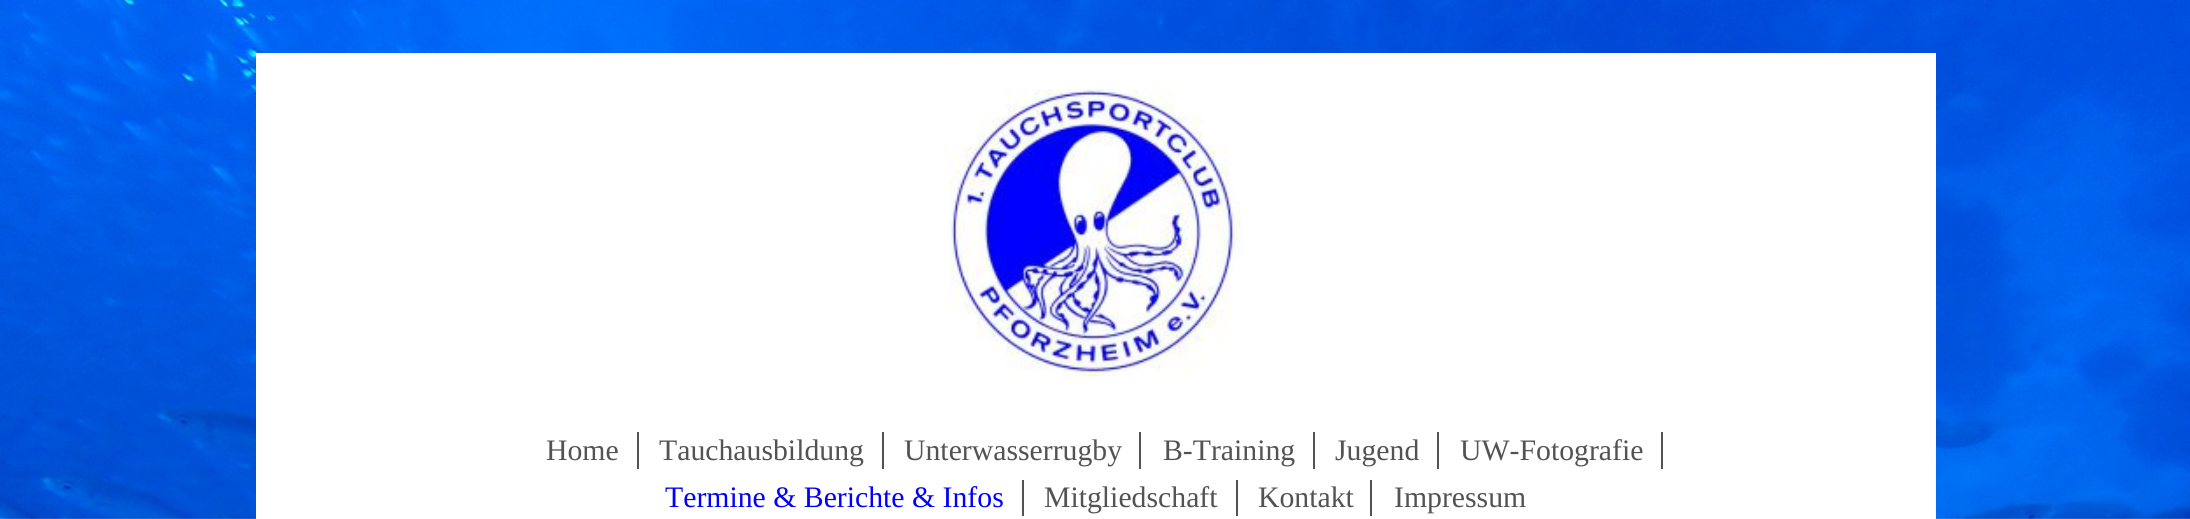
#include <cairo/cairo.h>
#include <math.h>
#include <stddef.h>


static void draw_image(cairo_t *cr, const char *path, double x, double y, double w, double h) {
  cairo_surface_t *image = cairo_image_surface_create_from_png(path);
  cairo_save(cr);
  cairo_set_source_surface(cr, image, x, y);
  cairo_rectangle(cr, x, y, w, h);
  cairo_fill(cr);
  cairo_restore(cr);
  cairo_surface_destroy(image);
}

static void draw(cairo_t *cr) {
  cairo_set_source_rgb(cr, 1, 1, 1);
  cairo_paint(cr);
  draw_image(cr, "images/1.png", 0, 0, 2190, 519);
  cairo_set_source_rgb(cr, 1, 1, 1);
  cairo_rectangle(cr, 256, 53, 1680, 466);
  cairo_fill(cr);
  draw_image(cr, "images/2.png", 950, 89, 291, 288);
  cairo_set_source_rgb(cr, 83 / 255.0, 83 / 255.0, 83 / 255.0);
  cairo_rectangle(cr, 637, 432, 2, 37);
  cairo_fill(cr);
  cairo_rectangle(cr, 882, 432, 2, 37);
  cairo_fill(cr);
  cairo_rectangle(cr, 1139, 432, 2, 37);
  cairo_fill(cr);
  cairo_rectangle(cr, 1313, 432, 2, 37);
  cairo_fill(cr);
  cairo_rectangle(cr, 1437, 432, 2, 37);
  cairo_fill(cr);
  cairo_rectangle(cr, 1661, 432, 2, 37);
  cairo_fill(cr);
  cairo_rectangle(cr, 1022, 480, 2, 36);
  cairo_fill(cr);
  cairo_rectangle(cr, 1236, 480, 2, 36);
  cairo_fill(cr);
  cairo_rectangle(cr, 1370, 480, 2, 36);
  cairo_fill(cr);
  cairo_select_font_face(cr, "Liberation Serif", CAIRO_FONT_SLANT_NORMAL, CAIRO_FONT_WEIGHT_NORMAL);
  cairo_set_font_size(cr, 29.75);
  cairo_move_to(cr, 546, 460);
  cairo_show_text(cr, "Home");
  cairo_move_to(cr, 659, 460);
  cairo_show_text(cr, "Tauchausbildung");
  cairo_move_to(cr, 904, 460);
  cairo_show_text(cr, "Unterwasserrugby");
  cairo_move_to(cr, 1163, 460);
  cairo_show_text(cr, "B-Training");
  cairo_move_to(cr, 1335, 460);
  cairo_show_text(cr, "Jugend");
  cairo_move_to(cr, 1460, 460);
  cairo_show_text(cr, "UW-Fotografie");
  cairo_set_source_rgb(cr, 0, 0, 254 / 255.0);
  cairo_move_to(cr, 665, 507);
  cairo_show_text(cr, "Termine & Berichte & Infos");
  cairo_set_source_rgb(cr, 83 / 255.0, 83 / 255.0, 83 / 255.0);
  cairo_move_to(cr, 1044, 507);
  cairo_show_text(cr, "Mitgliedschaft");
  cairo_move_to(cr, 1258, 507);
  cairo_show_text(cr, "Kontakt");
  cairo_move_to(cr, 1394, 507);
  cairo_show_text(cr, "Impressum");
}

int main(void) {
  cairo_surface_t *surface = cairo_image_surface_create(CAIRO_FORMAT_RGB24, 2190, 519);
  cairo_t *cr = cairo_create(surface);
  cairo_font_options_t *options = cairo_font_options_create();
  cairo_font_options_set_hint_metrics(options, CAIRO_HINT_METRICS_OFF);
  cairo_font_options_set_hint_style(options, CAIRO_HINT_STYLE_NONE);
  cairo_set_font_options(cr, options);
  cairo_set_miter_limit(cr, 4);
  draw(cr);
  cairo_surface_write_to_png(surface, "out.png");
  cairo_font_options_destroy(options);
  cairo_destroy(cr);
  cairo_surface_destroy(surface);
  return 0;
}
